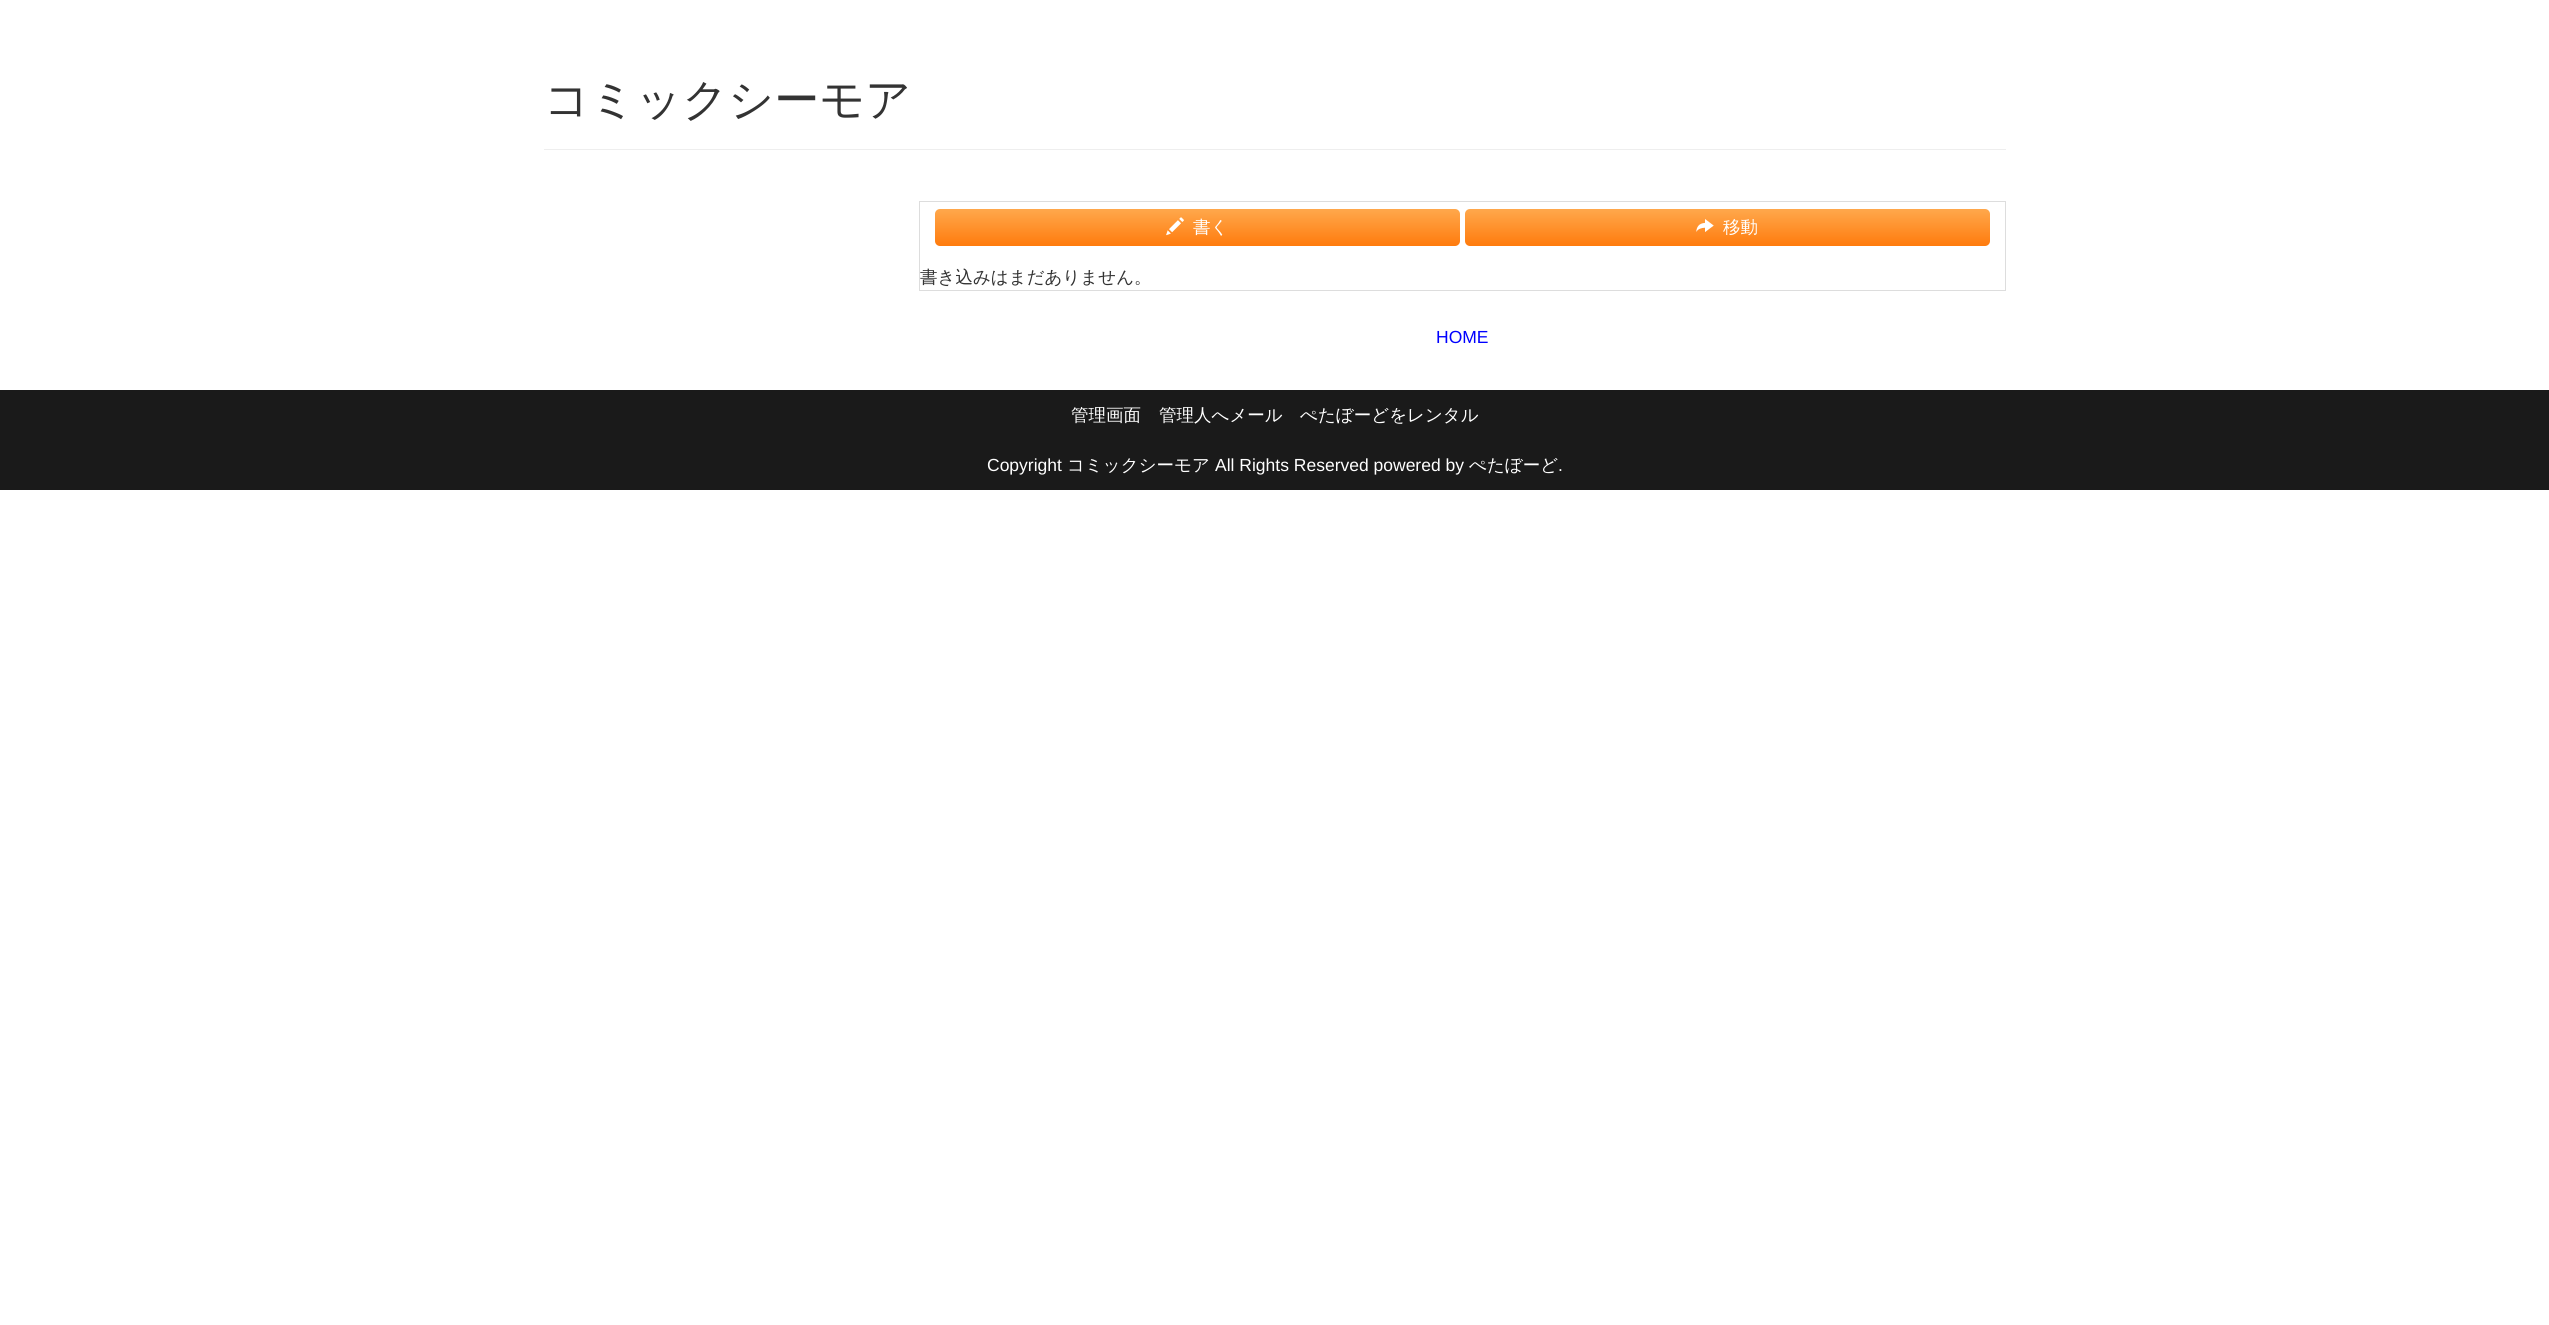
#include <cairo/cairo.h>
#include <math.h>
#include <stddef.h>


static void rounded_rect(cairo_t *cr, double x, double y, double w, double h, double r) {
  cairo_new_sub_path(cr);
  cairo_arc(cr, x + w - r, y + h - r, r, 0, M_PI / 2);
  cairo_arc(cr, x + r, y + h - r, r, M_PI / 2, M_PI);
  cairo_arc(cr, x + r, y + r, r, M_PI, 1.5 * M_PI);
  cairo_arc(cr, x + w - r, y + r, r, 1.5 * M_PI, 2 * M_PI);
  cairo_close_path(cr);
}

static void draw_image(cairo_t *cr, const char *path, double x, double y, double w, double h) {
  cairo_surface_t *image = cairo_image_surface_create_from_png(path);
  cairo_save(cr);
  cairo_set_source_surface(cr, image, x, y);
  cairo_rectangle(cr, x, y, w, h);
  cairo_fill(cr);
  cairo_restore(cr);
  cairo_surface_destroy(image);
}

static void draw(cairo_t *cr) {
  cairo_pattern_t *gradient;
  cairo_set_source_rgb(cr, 1, 1, 1);
  cairo_paint(cr);
  cairo_set_source_rgb(cr, 238 / 255.0, 238 / 255.0, 238 / 255.0);
  cairo_rectangle(cr, 544, 149, 1462, 1);
  cairo_fill(cr);
  cairo_rectangle(cr, 919.5, 201.5, 1086, 89);
  cairo_set_source_rgb(cr, 221 / 255.0, 221 / 255.0, 221 / 255.0);
  cairo_set_line_width(cr, 1);
  cairo_stroke(cr);
  gradient = cairo_pattern_create_linear(1198, 209, 1198, 246);
  cairo_pattern_add_color_stop_rgba(gradient, 0, 1, 168 / 255.0, 76 / 255.0, 1);
  cairo_pattern_add_color_stop_rgba(gradient, 1, 1, 123 / 255.0, 13 / 255.0, 1);
  cairo_set_source(cr, gradient);
  cairo_pattern_destroy(gradient);
  rounded_rect(cr, 935, 209, 525, 37, 5);
  cairo_fill(cr);
  draw_image(cr, "images/1.png", 1166, 217, 18, 19);
  gradient = cairo_pattern_create_linear(1728, 209, 1728, 246);
  cairo_pattern_add_color_stop_rgba(gradient, 0, 1, 168 / 255.0, 76 / 255.0, 1);
  cairo_pattern_add_color_stop_rgba(gradient, 1, 1, 123 / 255.0, 13 / 255.0, 1);
  cairo_set_source(cr, gradient);
  cairo_pattern_destroy(gradient);
  rounded_rect(cr, 1465, 209, 525, 37, 5);
  cairo_fill(cr);
  draw_image(cr, "images/2.png", 1696, 219, 18, 13);
  cairo_set_source_rgb(cr, 26 / 255.0, 26 / 255.0, 26 / 255.0);
  cairo_rectangle(cr, 0, 390, 2549, 100);
  cairo_fill(cr);
  cairo_select_font_face(cr, "WenQuanYi Zen Hei Medium", CAIRO_FONT_SLANT_NORMAL, CAIRO_FONT_WEIGHT_NORMAL);
  cairo_set_font_size(cr, 45);
  cairo_set_source_rgb(cr, 51 / 255.0, 51 / 255.0, 51 / 255.0);
  cairo_move_to(cr, 544, 115);
  cairo_show_text(cr, "コミックシーモア");
  cairo_set_font_size(cr, 17.5);
  cairo_set_source_rgb(cr, 1, 1, 1);
  cairo_move_to(cr, 1193, 233);
  cairo_show_text(cr, "書く");
  cairo_move_to(cr, 1723, 233);
  cairo_show_text(cr, "移動");
  cairo_set_source_rgb(cr, 51 / 255.0, 51 / 255.0, 51 / 255.0);
  cairo_move_to(cr, 920, 283);
  cairo_show_text(cr, "書き込みはまだありません。");
  cairo_select_font_face(cr, "Liberation Sans", CAIRO_FONT_SLANT_NORMAL, CAIRO_FONT_WEIGHT_NORMAL);
  cairo_set_source_rgb(cr, 0, 0, 1);
  cairo_move_to(cr, 1436, 343);
  cairo_show_text(cr, "HOME");
  cairo_select_font_face(cr, "WenQuanYi Zen Hei Medium", CAIRO_FONT_SLANT_NORMAL, CAIRO_FONT_WEIGHT_NORMAL);
  cairo_set_source_rgb(cr, 1, 1, 1);
  cairo_move_to(cr, 1071, 421);
  cairo_show_text(cr, "管理画面");
  cairo_move_to(cr, 1159, 421);
  cairo_show_text(cr, "管理人へメール");
  cairo_move_to(cr, 1300, 421);
  cairo_show_text(cr, "ぺたぼーどをレンタル");
  cairo_select_font_face(cr, "Liberation Sans", CAIRO_FONT_SLANT_NORMAL, CAIRO_FONT_WEIGHT_NORMAL);
  cairo_move_to(cr, 987, 471);
  cairo_show_text(cr, "Copyright");
  cairo_select_font_face(cr, "WenQuanYi Zen Hei Medium", CAIRO_FONT_SLANT_NORMAL, CAIRO_FONT_WEIGHT_NORMAL);
  cairo_move_to(cr, 1067, 471);
  cairo_show_text(cr, "コミックシーモア");
  cairo_select_font_face(cr, "Liberation Sans", CAIRO_FONT_SLANT_NORMAL, CAIRO_FONT_WEIGHT_NORMAL);
  cairo_move_to(cr, 1215, 471);
  cairo_show_text(cr, "All Rights Reserved powered by");
  cairo_select_font_face(cr, "WenQuanYi Zen Hei Medium", CAIRO_FONT_SLANT_NORMAL, CAIRO_FONT_WEIGHT_NORMAL);
  cairo_move_to(cr, 1469, 471);
  cairo_show_text(cr, "ぺたぼーど");
  cairo_select_font_face(cr, "Liberation Sans", CAIRO_FONT_SLANT_NORMAL, CAIRO_FONT_WEIGHT_NORMAL);
  cairo_move_to(cr, 1558, 471);
  cairo_show_text(cr, ".");
}

int main(void) {
  cairo_surface_t *surface = cairo_image_surface_create(CAIRO_FORMAT_RGB24, 2549, 1325);
  cairo_t *cr = cairo_create(surface);
  cairo_font_options_t *options = cairo_font_options_create();
  cairo_font_options_set_hint_metrics(options, CAIRO_HINT_METRICS_OFF);
  cairo_font_options_set_hint_style(options, CAIRO_HINT_STYLE_NONE);
  cairo_set_font_options(cr, options);
  cairo_set_miter_limit(cr, 4);
  draw(cr);
  cairo_surface_write_to_png(surface, "out.png");
  cairo_font_options_destroy(options);
  cairo_destroy(cr);
  cairo_surface_destroy(surface);
  return 0;
}
